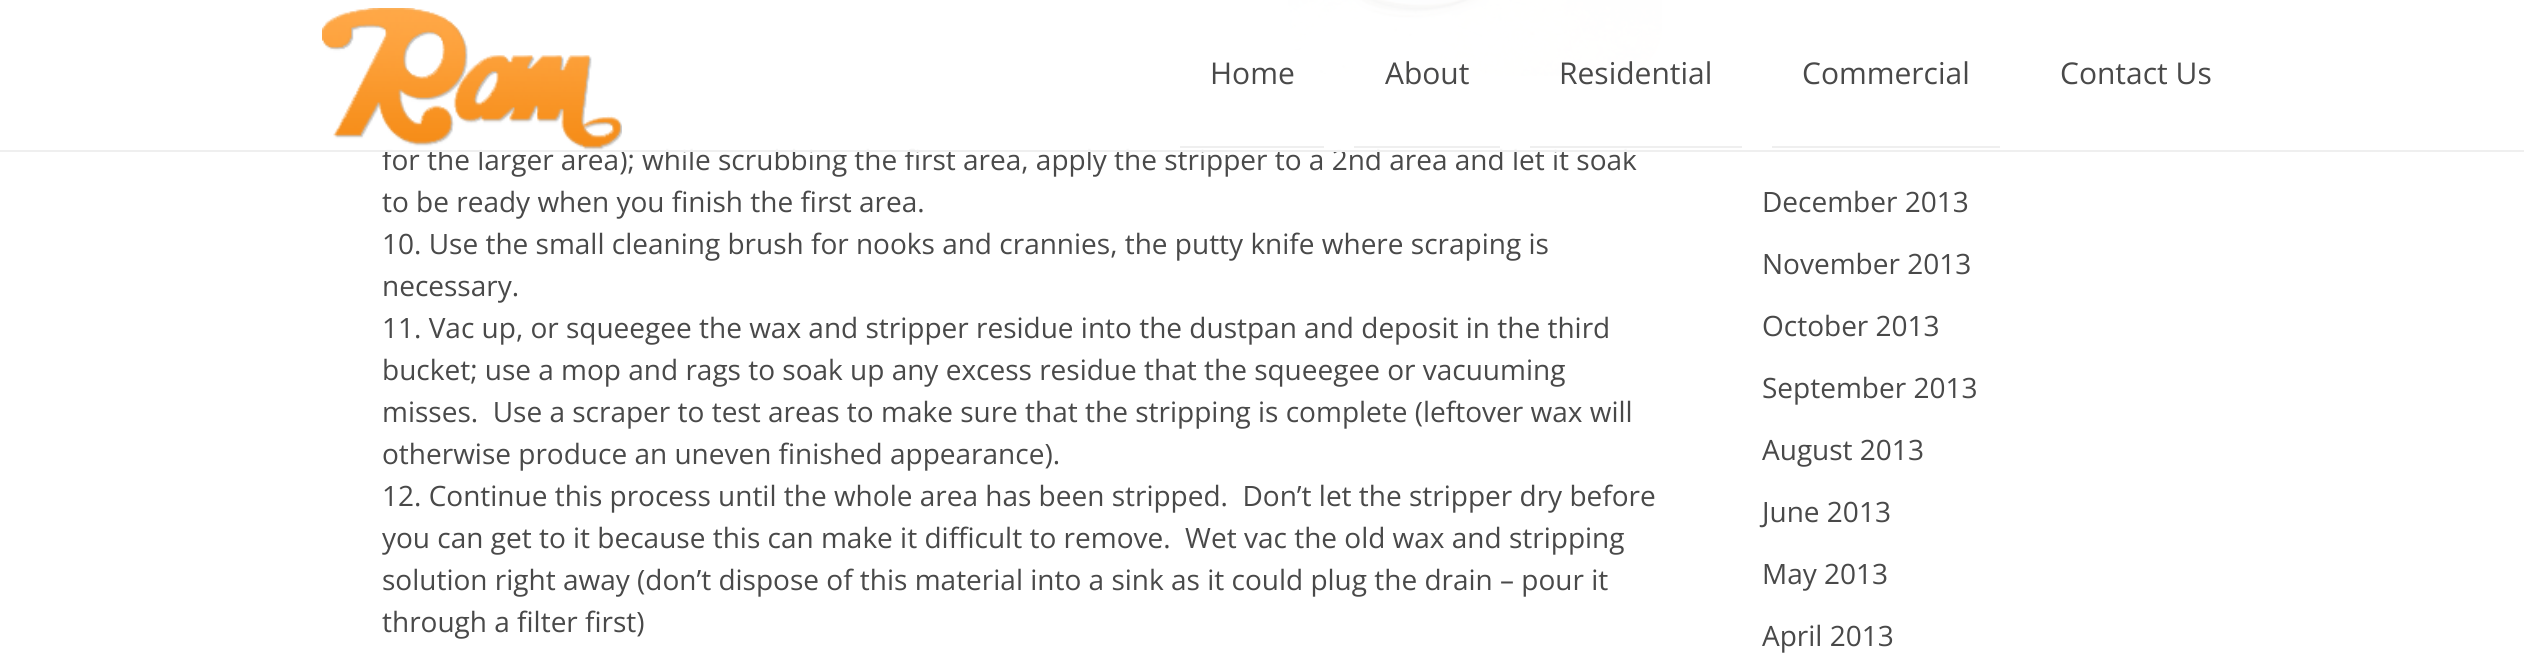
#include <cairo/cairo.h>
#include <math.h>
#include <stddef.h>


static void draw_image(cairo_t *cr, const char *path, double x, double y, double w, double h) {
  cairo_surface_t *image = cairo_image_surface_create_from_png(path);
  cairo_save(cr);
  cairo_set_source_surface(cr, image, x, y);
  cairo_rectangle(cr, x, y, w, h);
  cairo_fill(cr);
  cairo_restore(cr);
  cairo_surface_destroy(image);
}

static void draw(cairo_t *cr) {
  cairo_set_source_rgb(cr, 1, 1, 1);
  cairo_paint(cr);
  cairo_set_source_rgb(cr, 239 / 255.0, 239 / 255.0, 239 / 255.0);
  cairo_rectangle(cr, 1772, 146, 228, 2);
  cairo_fill(cr);
  draw_image(cr, "images/2.png", 1288, 0, 374, 76);
  cairo_select_font_face(cr, "Open Sans", CAIRO_FONT_SLANT_NORMAL, CAIRO_FONT_WEIGHT_NORMAL);
  cairo_set_font_size(cr, 30);
  cairo_set_source_rgb(cr, 73 / 255.0, 73 / 255.0, 73 / 255.0);
  cairo_move_to(cr, 1802, 84);
  cairo_show_text(cr, "Commercial");
  cairo_move_to(cr, 2060, 84);
  cairo_show_text(cr, "Contact Us");
  cairo_set_font_size(cr, 28);
  cairo_move_to(cr, 382, 170);
  cairo_show_text(cr, "for the larger area); while scrubbing the first area, apply the stripper to a 2nd area and let it soak");
  cairo_set_source_rgba(cr, 1, 1, 1, 0.95);
  cairo_rectangle(cr, 386, 0, 1276, 150);
  cairo_fill(cr);
  cairo_set_font_size(cr, 30);
  cairo_set_source_rgb(cr, 73 / 255.0, 73 / 255.0, 73 / 255.0);
  cairo_move_to(cr, 1559, 84);
  cairo_show_text(cr, "Residential");
  cairo_set_source_rgb(cr, 239 / 255.0, 239 / 255.0, 239 / 255.0);
  cairo_rectangle(cr, 1530, 146, 212, 2);
  cairo_fill(cr);
  cairo_set_source_rgb(cr, 73 / 255.0, 73 / 255.0, 73 / 255.0);
  cairo_move_to(cr, 1385, 84);
  cairo_show_text(cr, "About");
  cairo_set_source_rgb(cr, 239 / 255.0, 239 / 255.0, 239 / 255.0);
  cairo_rectangle(cr, 1354, 146, 146, 2);
  cairo_fill(cr);
  cairo_set_source_rgb(cr, 73 / 255.0, 73 / 255.0, 73 / 255.0);
  cairo_move_to(cr, 1210, 84);
  cairo_show_text(cr, "Home");
  cairo_set_source_rgb(cr, 239 / 255.0, 239 / 255.0, 239 / 255.0);
  cairo_rectangle(cr, 1180, 146, 144, 2);
  cairo_fill(cr);
  draw_image(cr, "images/1.png", 322, 8, 300, 142);
  cairo_rectangle(cr, 0, 150, 2524, 2);
  cairo_fill(cr);
  cairo_set_font_size(cr, 28);
  cairo_set_source_rgb(cr, 73 / 255.0, 73 / 255.0, 73 / 255.0);
  cairo_move_to(cr, 382, 212);
  cairo_show_text(cr, "to be ready when you finish the first area.");
  cairo_move_to(cr, 382, 254);
  cairo_show_text(cr, "10. Use the small cleaning brush for nooks and crannies, the putty knife where scraping is");
  cairo_move_to(cr, 382, 296);
  cairo_show_text(cr, "necessary.");
  cairo_move_to(cr, 382, 338);
  cairo_show_text(cr, "11. Vac up, or squeegee the wax and stripper residue into the dustpan and deposit in the third");
  cairo_move_to(cr, 382, 380);
  cairo_show_text(cr, "bucket; use a mop and rags to soak up any excess residue that the squeegee or vacuuming");
  cairo_move_to(cr, 382, 422);
  cairo_show_text(cr, "misses.  Use a scraper to test areas to make sure that the stripping is complete (leftover wax will");
  cairo_move_to(cr, 382, 464);
  cairo_show_text(cr, "otherwise produce an uneven finished appearance).");
  cairo_move_to(cr, 382, 506);
  cairo_show_text(cr, "12. Continue this process until the whole area has been stripped.  Don’t let the stripper dry before");
  cairo_move_to(cr, 382, 548);
  cairo_show_text(cr, "you can get to it because this can make it difficult to remove.  Wet vac the old wax and stripping");
  cairo_move_to(cr, 382, 590);
  cairo_show_text(cr, "solution right away (don’t dispose of this material into a sink as it could plug the drain – pour it");
  cairo_move_to(cr, 382, 632);
  cairo_show_text(cr, "through a filter first)");
  cairo_move_to(cr, 1762, 212);
  cairo_show_text(cr, "December 2013");
  cairo_move_to(cr, 1762, 274);
  cairo_show_text(cr, "November 2013");
  cairo_move_to(cr, 1762, 336);
  cairo_show_text(cr, "October 2013");
  cairo_move_to(cr, 1762, 398);
  cairo_show_text(cr, "September 2013");
  cairo_move_to(cr, 1762, 460);
  cairo_show_text(cr, "August 2013");
  cairo_move_to(cr, 1762, 522);
  cairo_show_text(cr, "June 2013");
  cairo_move_to(cr, 1762, 584);
  cairo_show_text(cr, "May 2013");
  cairo_move_to(cr, 1762, 646);
  cairo_show_text(cr, "April 2013");
}

int main(void) {
  cairo_surface_t *surface = cairo_image_surface_create(CAIRO_FORMAT_RGB24, 2524, 663);
  cairo_t *cr = cairo_create(surface);
  cairo_font_options_t *options = cairo_font_options_create();
  cairo_font_options_set_hint_metrics(options, CAIRO_HINT_METRICS_OFF);
  cairo_font_options_set_hint_style(options, CAIRO_HINT_STYLE_NONE);
  cairo_set_font_options(cr, options);
  cairo_set_miter_limit(cr, 4);
  draw(cr);
  cairo_surface_write_to_png(surface, "out.png");
  cairo_font_options_destroy(options);
  cairo_destroy(cr);
  cairo_surface_destroy(surface);
  return 0;
}
